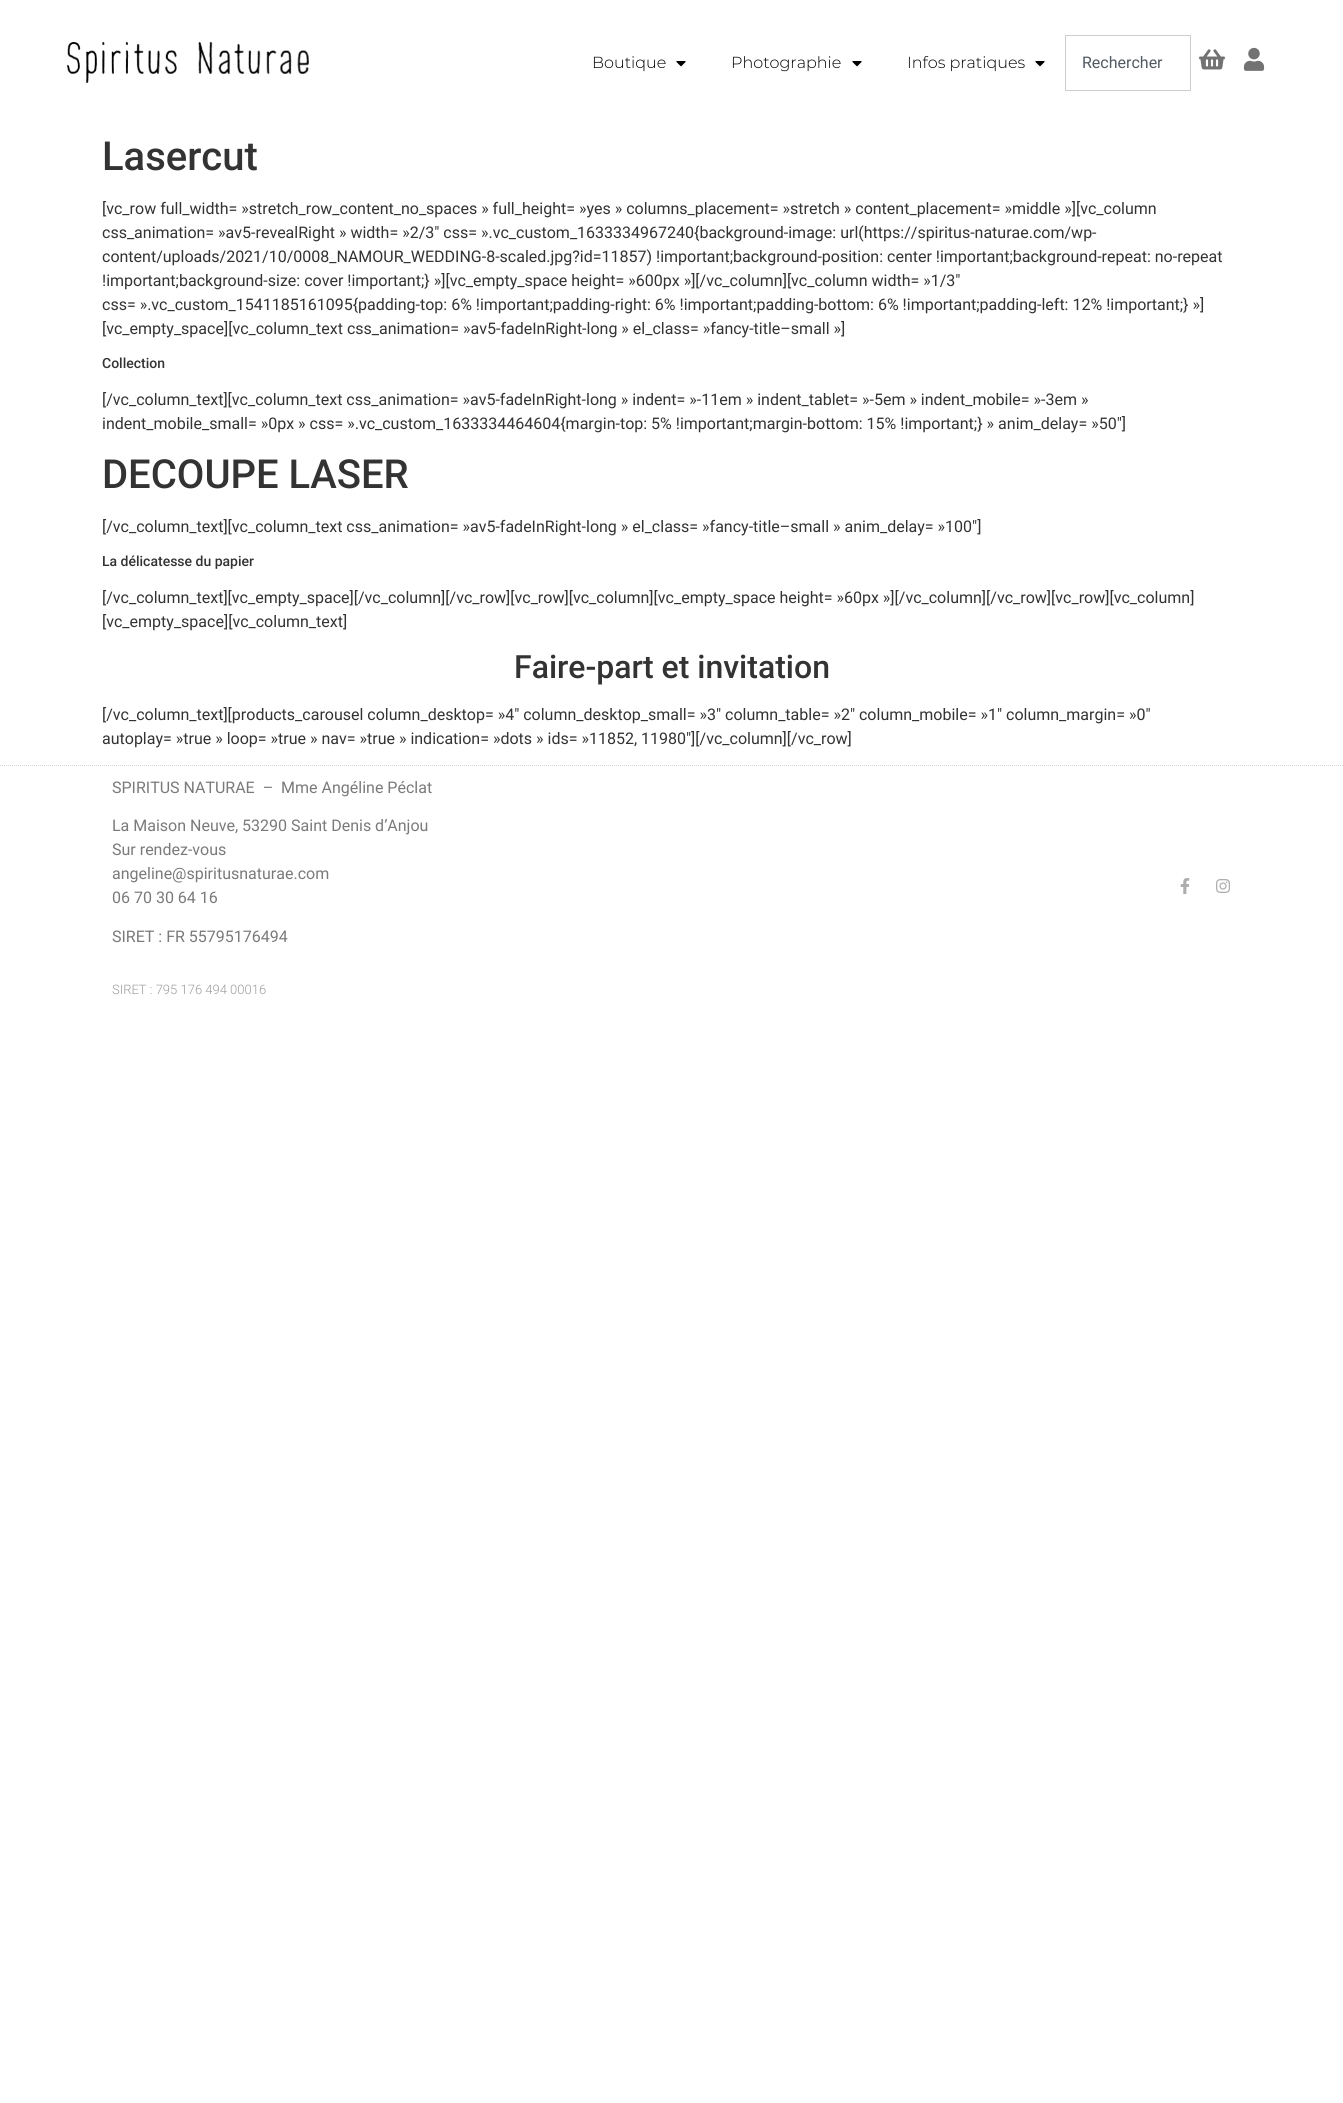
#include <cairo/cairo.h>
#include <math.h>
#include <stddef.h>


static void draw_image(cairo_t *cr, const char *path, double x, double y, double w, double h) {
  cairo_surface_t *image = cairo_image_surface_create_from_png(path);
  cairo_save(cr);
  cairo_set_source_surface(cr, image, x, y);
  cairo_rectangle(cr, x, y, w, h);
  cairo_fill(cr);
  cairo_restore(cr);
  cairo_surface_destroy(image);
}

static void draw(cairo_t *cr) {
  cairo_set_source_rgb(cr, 1, 1, 1);
  cairo_paint(cr);
  draw_image(cr, "images/1.png", 67, 42, 242, 41);
  draw_image(cr, "images/2.png", 676, 61, 10, 6);
  draw_image(cr, "images/2.png", 852, 61, 10, 6);
  draw_image(cr, "images/2.png", 1035, 61, 10, 6);
  cairo_rectangle(cr, 1065.5, 35.5, 125, 55);
  cairo_set_source_rgb(cr, 205 / 255.0, 205 / 255.0, 205 / 255.0);
  cairo_set_line_width(cr, 1);
  cairo_stroke(cr);
  draw_image(cr, "images/3.png", 1199, 49, 26, 21);
  draw_image(cr, "images/4.png", 1243, 47, 22, 24);
  cairo_new_path(cr);
  cairo_move_to(cr, 0, 765.5);
  cairo_line_to(cr, 1343, 765.5);
  cairo_set_source_rgb(cr, 214 / 255.0, 214 / 255.0, 214 / 255.0);
  cairo_set_dash(cr, (double[]){1, 1}, 2, 0);
  cairo_stroke(cr);
  draw_image(cr, "images/5.png", 1180, 878, 10, 16);
  draw_image(cr, "images/6.png", 1216, 879, 14, 14);
  cairo_select_font_face(cr, "Montserrat Light", CAIRO_FONT_SLANT_NORMAL, CAIRO_FONT_WEIGHT_NORMAL);
  cairo_set_font_size(cr, 16);
  cairo_set_source_rgb(cr, 0, 0, 0);
  cairo_move_to(cr, 592, 68);
  cairo_show_text(cr, "Boutique");
  cairo_move_to(cr, 731, 68);
  cairo_show_text(cr, "Photographie");
  cairo_move_to(cr, 907, 68);
  cairo_show_text(cr, "Infos pratiques");
  cairo_select_font_face(cr, "Roboto", CAIRO_FONT_SLANT_NORMAL, CAIRO_FONT_WEIGHT_NORMAL);
  cairo_set_source_rgb(cr, 81 / 255.0, 89 / 255.0, 98 / 255.0);
  cairo_move_to(cr, 1082, 68);
  cairo_show_text(cr, "Rechercher");
  cairo_select_font_face(cr, "Roboto Medium", CAIRO_FONT_SLANT_NORMAL, CAIRO_FONT_WEIGHT_NORMAL);
  cairo_set_font_size(cr, 40);
  cairo_set_source_rgb(cr, 51 / 255.0, 51 / 255.0, 51 / 255.0);
  cairo_move_to(cr, 102, 170);
  cairo_show_text(cr, "Lasercut");
  cairo_select_font_face(cr, "Roboto", CAIRO_FONT_SLANT_NORMAL, CAIRO_FONT_WEIGHT_NORMAL);
  cairo_set_font_size(cr, 16);
  cairo_move_to(cr, 102, 214);
  cairo_show_text(cr, "[vc_row full_width= »stretch_row_content_no_spaces » full_height= »yes » columns_placement= »stretch » content_placement= »middle »][vc_column");
  cairo_move_to(cr, 102, 238);
  cairo_show_text(cr, "css_animation= »av5-revealRight » width= »2/3″ css= ».vc_custom_1633334967240{background-image: url(https://spiritus-naturae.com/wp-");
  cairo_move_to(cr, 102, 262);
  cairo_show_text(cr, "content/uploads/2021/10/0008_NAMOUR_WEDDING-8-scaled.jpg?id=11857) !important;background-position: center !important;background-repeat: no-repeat");
  cairo_move_to(cr, 102, 286);
  cairo_show_text(cr, "!important;background-size: cover !important;} »][vc_empty_space height= »600px »][/vc_column][vc_column width= »1/3″");
  cairo_move_to(cr, 102, 310);
  cairo_show_text(cr, "css= ».vc_custom_1541185161095{padding-top: 6% !important;padding-right: 6% !important;padding-bottom: 6% !important;padding-left: 12% !important;} »]");
  cairo_move_to(cr, 102, 334);
  cairo_show_text(cr, "[vc_empty_space][vc_column_text css_animation= »av5-fadeInRight-long » el_class= »fancy-title–small »]");
  cairo_select_font_face(cr, "Roboto Medium", CAIRO_FONT_SLANT_NORMAL, CAIRO_FONT_WEIGHT_NORMAL);
  cairo_set_font_size(cr, 14);
  cairo_move_to(cr, 102, 368);
  cairo_show_text(cr, "Collection");
  cairo_select_font_face(cr, "Roboto", CAIRO_FONT_SLANT_NORMAL, CAIRO_FONT_WEIGHT_NORMAL);
  cairo_set_font_size(cr, 16);
  cairo_move_to(cr, 102, 405);
  cairo_show_text(cr, "[/vc_column_text][vc_column_text css_animation= »av5-fadeInRight-long » indent= »-11em » indent_tablet= »-5em » indent_mobile= »-3em »");
  cairo_move_to(cr, 102, 429);
  cairo_show_text(cr, "indent_mobile_small= »0px » css= ».vc_custom_1633334464604{margin-top: 5% !important;margin-bottom: 15% !important;} » anim_delay= »50″]");
  cairo_select_font_face(cr, "Roboto Medium", CAIRO_FONT_SLANT_NORMAL, CAIRO_FONT_WEIGHT_NORMAL);
  cairo_set_font_size(cr, 40);
  cairo_move_to(cr, 102, 488);
  cairo_show_text(cr, "DECOUPE LASER");
  cairo_select_font_face(cr, "Roboto", CAIRO_FONT_SLANT_NORMAL, CAIRO_FONT_WEIGHT_NORMAL);
  cairo_set_font_size(cr, 16);
  cairo_move_to(cr, 102, 532);
  cairo_show_text(cr, "[/vc_column_text][vc_column_text css_animation= »av5-fadeInRight-long » el_class= »fancy-title–small » anim_delay= »100″]");
  cairo_select_font_face(cr, "Roboto Medium", CAIRO_FONT_SLANT_NORMAL, CAIRO_FONT_WEIGHT_NORMAL);
  cairo_set_font_size(cr, 14);
  cairo_move_to(cr, 102, 566);
  cairo_show_text(cr, "La délicatesse du papier");
  cairo_select_font_face(cr, "Roboto", CAIRO_FONT_SLANT_NORMAL, CAIRO_FONT_WEIGHT_NORMAL);
  cairo_set_font_size(cr, 16);
  cairo_move_to(cr, 102, 603);
  cairo_show_text(cr, "[/vc_column_text][vc_empty_space][/vc_column][/vc_row][vc_row][vc_column][vc_empty_space height= »60px »][/vc_column][/vc_row][vc_row][vc_column]");
  cairo_move_to(cr, 102, 627);
  cairo_show_text(cr, "[vc_empty_space][vc_column_text]");
  cairo_select_font_face(cr, "Roboto Medium", CAIRO_FONT_SLANT_NORMAL, CAIRO_FONT_WEIGHT_NORMAL);
  cairo_set_font_size(cr, 32);
  cairo_move_to(cr, 514, 678);
  cairo_show_text(cr, "Faire-part et invitation");
  cairo_select_font_face(cr, "Roboto", CAIRO_FONT_SLANT_NORMAL, CAIRO_FONT_WEIGHT_NORMAL);
  cairo_set_font_size(cr, 16);
  cairo_move_to(cr, 102, 720);
  cairo_show_text(cr, "[/vc_column_text][products_carousel column_desktop= »4″ column_desktop_small= »3″ column_table= »2″ column_mobile= »1″ column_margin= »0″");
  cairo_move_to(cr, 102, 744);
  cairo_show_text(cr, "autoplay= »true » loop= »true » nav= »true » indication= »dots » ids= »11852, 11980″][/vc_column][/vc_row]");
  cairo_set_source_rgb(cr, 122 / 255.0, 122 / 255.0, 122 / 255.0);
  cairo_move_to(cr, 112, 793);
  cairo_show_text(cr, "SPIRITUS NATURAE  –  Mme Angéline Péclat");
  cairo_move_to(cr, 112, 831);
  cairo_show_text(cr, "La Maison Neuve, 53290 Saint Denis d’Anjou");
  cairo_move_to(cr, 112, 855);
  cairo_show_text(cr, "Sur rendez-vous");
  cairo_move_to(cr, 112, 879);
  cairo_show_text(cr, "angeline@spiritusnaturae.com");
  cairo_move_to(cr, 112, 903);
  cairo_show_text(cr, "06 70 30 64 16");
  cairo_move_to(cr, 112, 942);
  cairo_show_text(cr, "SIRET : FR 55795176494");
  cairo_select_font_face(cr, "Roboto Light", CAIRO_FONT_SLANT_NORMAL, CAIRO_FONT_WEIGHT_NORMAL);
  cairo_set_font_size(cr, 13);
  cairo_set_source_rgb(cr, 156 / 255.0, 156 / 255.0, 156 / 255.0);
  cairo_move_to(cr, 112, 994);
  cairo_show_text(cr, "SIRET : 795 176 494 00016");
}

int main(void) {
  cairo_surface_t *surface = cairo_image_surface_create(CAIRO_FORMAT_RGB24, 1343, 2103);
  cairo_t *cr = cairo_create(surface);
  cairo_font_options_t *options = cairo_font_options_create();
  cairo_font_options_set_hint_metrics(options, CAIRO_HINT_METRICS_OFF);
  cairo_font_options_set_hint_style(options, CAIRO_HINT_STYLE_NONE);
  cairo_set_font_options(cr, options);
  cairo_set_miter_limit(cr, 4);
  draw(cr);
  cairo_surface_write_to_png(surface, "out.png");
  cairo_font_options_destroy(options);
  cairo_destroy(cr);
  cairo_surface_destroy(surface);
  return 0;
}
